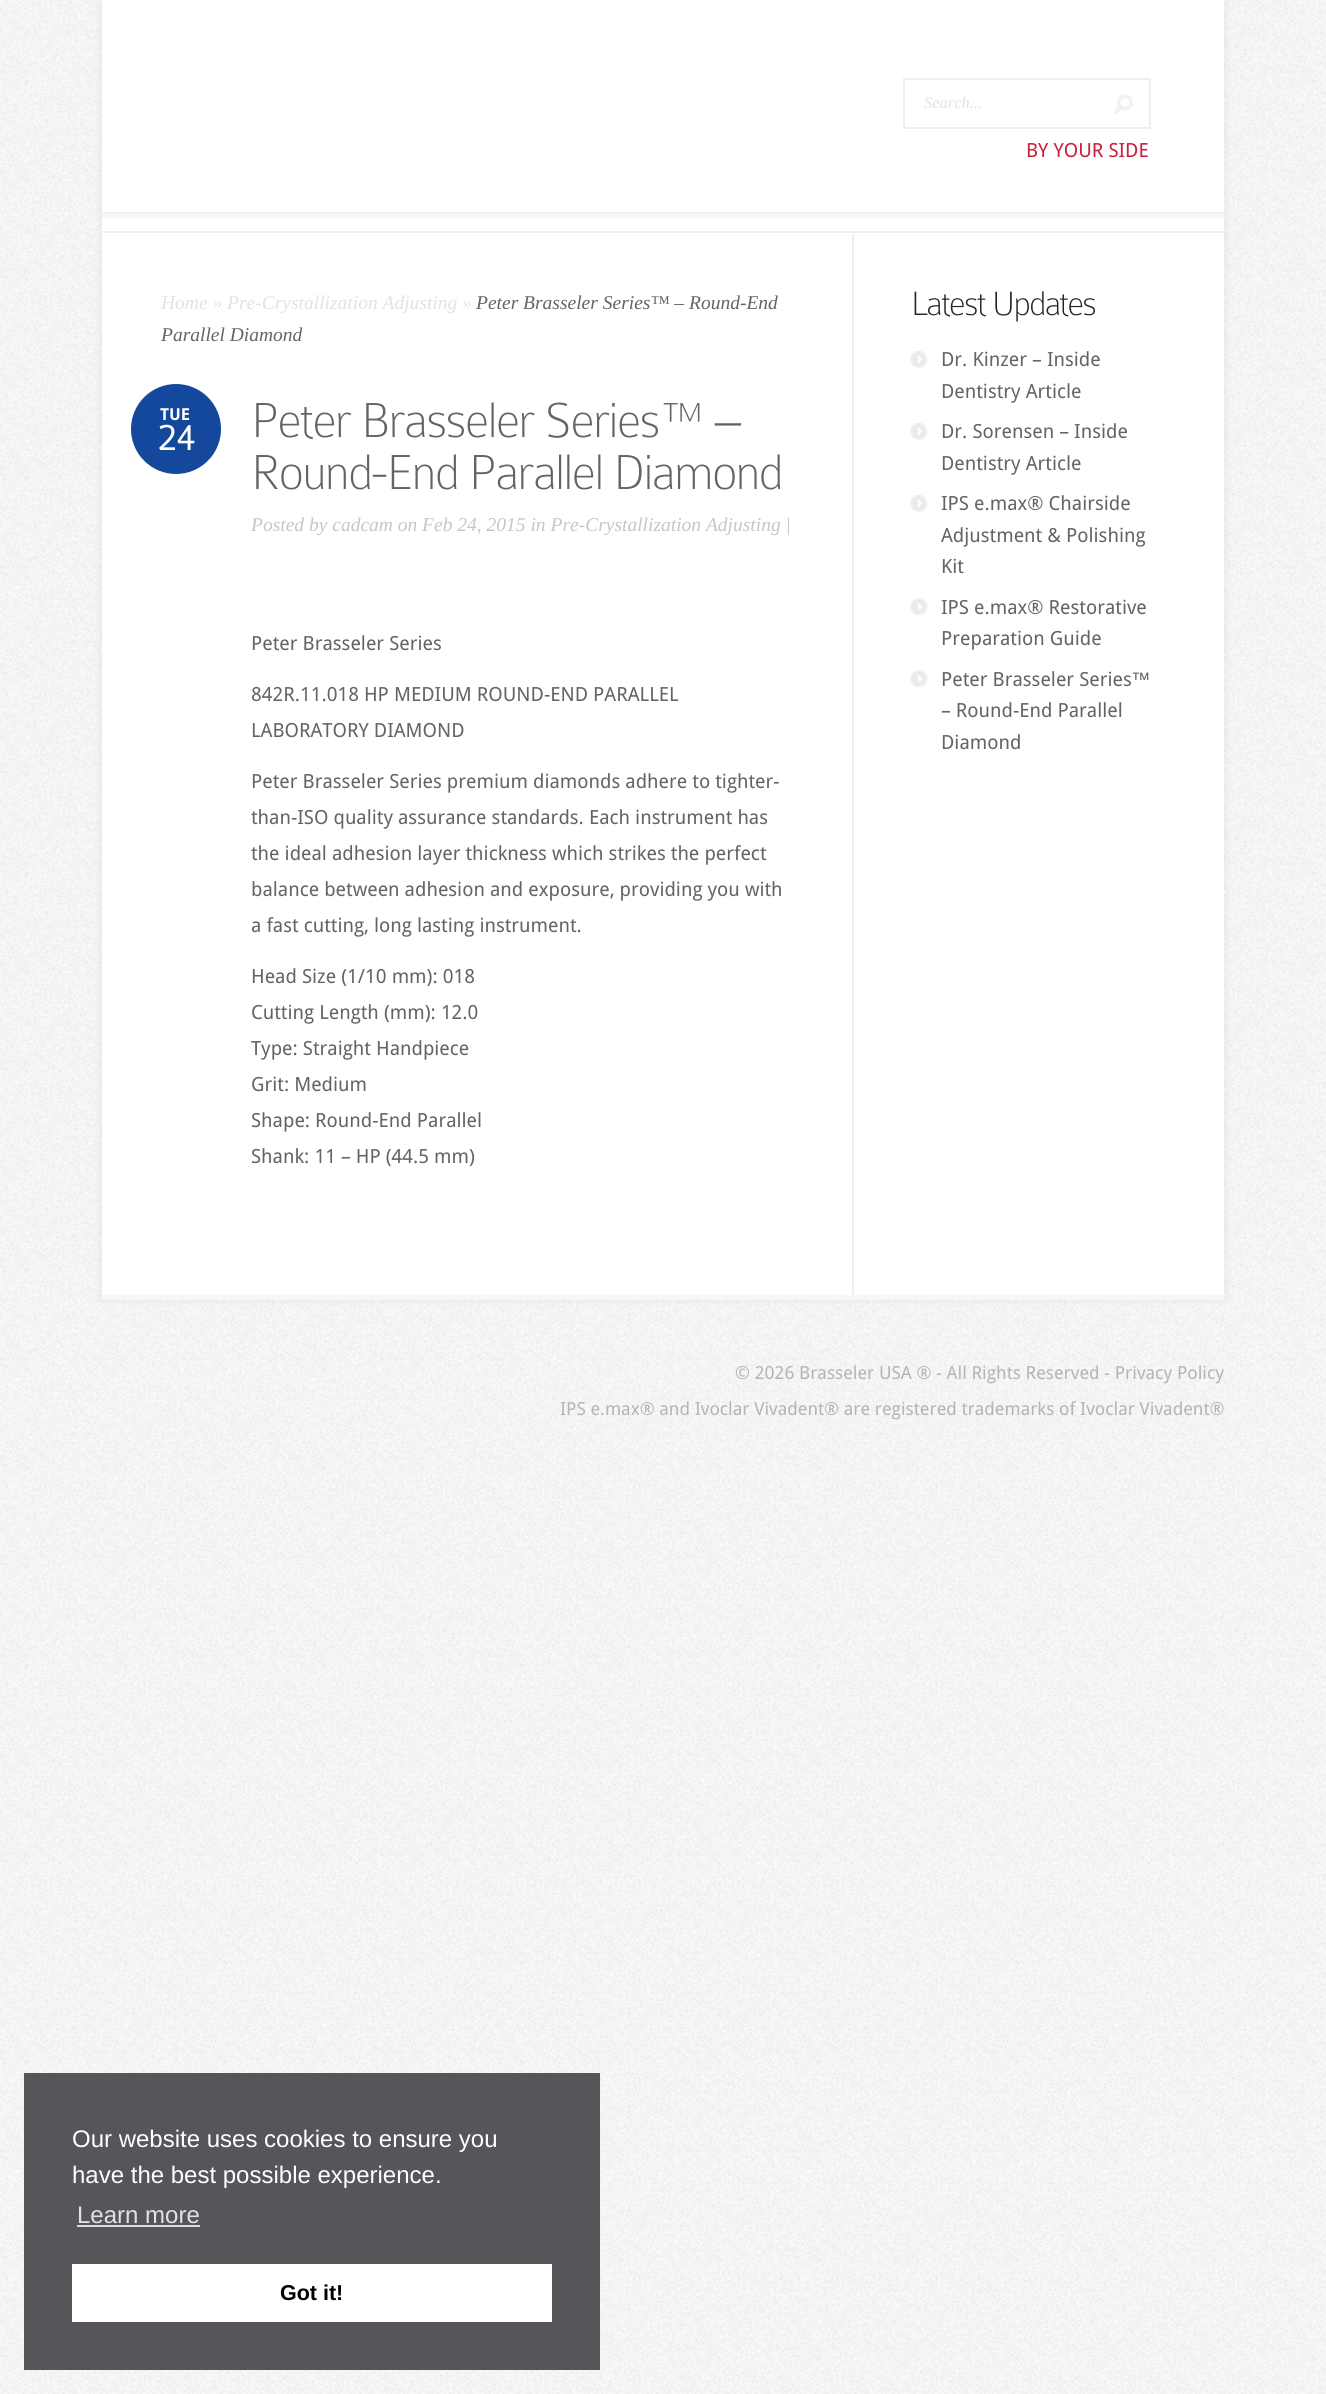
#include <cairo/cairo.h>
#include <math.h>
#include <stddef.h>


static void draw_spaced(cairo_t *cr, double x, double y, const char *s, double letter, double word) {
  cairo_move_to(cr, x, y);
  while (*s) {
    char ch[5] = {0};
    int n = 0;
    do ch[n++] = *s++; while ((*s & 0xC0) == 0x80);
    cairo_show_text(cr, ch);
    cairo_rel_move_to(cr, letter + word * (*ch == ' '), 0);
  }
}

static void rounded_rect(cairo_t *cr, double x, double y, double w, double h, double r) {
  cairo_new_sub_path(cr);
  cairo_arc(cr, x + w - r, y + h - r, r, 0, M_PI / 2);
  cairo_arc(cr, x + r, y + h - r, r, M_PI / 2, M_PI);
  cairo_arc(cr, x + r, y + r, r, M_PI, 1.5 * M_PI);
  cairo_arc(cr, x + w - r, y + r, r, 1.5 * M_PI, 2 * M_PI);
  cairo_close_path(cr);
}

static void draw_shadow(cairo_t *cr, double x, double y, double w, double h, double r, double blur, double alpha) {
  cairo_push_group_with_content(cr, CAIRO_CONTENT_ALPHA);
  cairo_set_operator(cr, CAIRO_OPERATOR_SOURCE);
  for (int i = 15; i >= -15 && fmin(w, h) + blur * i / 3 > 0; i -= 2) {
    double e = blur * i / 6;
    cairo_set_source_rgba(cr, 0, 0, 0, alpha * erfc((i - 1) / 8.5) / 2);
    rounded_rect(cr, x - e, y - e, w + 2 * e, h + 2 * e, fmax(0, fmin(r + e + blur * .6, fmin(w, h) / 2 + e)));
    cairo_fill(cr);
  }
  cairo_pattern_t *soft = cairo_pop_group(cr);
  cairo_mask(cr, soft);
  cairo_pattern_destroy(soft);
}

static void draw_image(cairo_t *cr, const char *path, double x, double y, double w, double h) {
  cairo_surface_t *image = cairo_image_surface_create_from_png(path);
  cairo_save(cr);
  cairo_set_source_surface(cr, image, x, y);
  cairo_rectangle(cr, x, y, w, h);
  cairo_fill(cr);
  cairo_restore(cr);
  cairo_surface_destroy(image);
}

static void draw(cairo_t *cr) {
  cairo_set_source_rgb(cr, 248 / 255.0, 248 / 255.0, 248 / 255.0);
  cairo_paint(cr);
  draw_image(cr, "images/1.png", 0, 0, 1326, 2394);
  cairo_set_source_rgb(cr, 0, 0, 0);
  draw_shadow(cr, 102, 0, 1122, 1299, 0, 5, 0.08);
  cairo_set_source_rgb(cr, 1, 1, 1);
  cairo_rectangle(cr, 102, 0, 1122, 231);
  cairo_fill(cr);
  cairo_set_source_rgb(cr, 239 / 255.0, 239 / 255.0, 239 / 255.0);
  cairo_rectangle(cr, 102, 212, 1122, 1);
  cairo_fill(cr);
  cairo_rectangle(cr, 904, 79, 246, 49);
  cairo_stroke(cr);
  draw_image(cr, "images/2.png", 1114, 94, 19, 20);
  cairo_set_source_rgb(cr, 247 / 255.0, 247 / 255.0, 247 / 255.0);
  cairo_rectangle(cr, 102, 213, 1122, 5);
  cairo_fill(cr);
  cairo_set_source_rgb(cr, 239 / 255.0, 239 / 255.0, 239 / 255.0);
  cairo_rectangle(cr, 102, 231, 1122, 2);
  cairo_fill(cr);
  cairo_set_source_rgb(cr, 1, 1, 1);
  cairo_rectangle(cr, 102, 233, 1122, 1062);
  cairo_fill(cr);
  cairo_set_source_rgb(cr, 20 / 255.0, 72 / 255.0, 156 / 255.0);
  cairo_arc(cr, 176, 429, 45, 0, 2 * M_PI);
  cairo_fill(cr);
  cairo_set_source_rgb(cr, 239 / 255.0, 239 / 255.0, 239 / 255.0);
  cairo_rectangle(cr, 852, 234, 2, 1061);
  cairo_fill(cr);
  draw_image(cr, "images/3.png", 910, 351, 17, 17);
  draw_image(cr, "images/3.png", 910, 423, 17, 17);
  draw_image(cr, "images/3.png", 910, 495, 17, 17);
  draw_image(cr, "images/4.png", 910, 598, 17, 17);
  draw_image(cr, "images/4.png", 910, 670, 17, 17);
  cairo_set_source_rgb(cr, 247 / 255.0, 247 / 255.0, 247 / 255.0);
  cairo_rectangle(cr, 102, 1295, 1122, 5);
  cairo_fill(cr);
  cairo_set_source_rgb(cr, 85 / 255.0, 85 / 255.0, 90 / 255.0);
  cairo_rectangle(cr, 24, 2073, 576, 297);
  cairo_fill(cr);
  cairo_set_source_rgb(cr, 221 / 255.0, 221 / 255.0, 222 / 255.0);
  cairo_rectangle(cr, 77, 2225, 123, 2);
  cairo_fill(cr);
  cairo_set_source_rgb(cr, 1, 1, 1);
  cairo_rectangle(cr, 72, 2264, 480, 58);
  cairo_fill(cr);
  cairo_select_font_face(cr, "Liberation Serif", CAIRO_FONT_SLANT_ITALIC, CAIRO_FONT_WEIGHT_NORMAL);
  cairo_set_font_size(cr, 16.5);
  cairo_set_source_rgb(cr, 226 / 255.0, 226 / 255.0, 226 / 255.0);
  cairo_move_to(cr, 924, 108);
  cairo_show_text(cr, "Search...");
  cairo_select_font_face(cr, "Droid Sans", CAIRO_FONT_SLANT_NORMAL, CAIRO_FONT_WEIGHT_NORMAL);
  cairo_set_font_size(cr, 19.5);
  cairo_set_source_rgb(cr, 199 / 255.0, 31 / 255.0, 60 / 255.0);
  cairo_move_to(cr, 1026, 157);
  cairo_show_text(cr, "BY YOUR SIDE");
  cairo_select_font_face(cr, "Liberation Serif", CAIRO_FONT_SLANT_ITALIC, CAIRO_FONT_WEIGHT_NORMAL);
  cairo_set_source_rgb(cr, 226 / 255.0, 226 / 255.0, 226 / 255.0);
  cairo_move_to(cr, 161, 309);
  cairo_show_text(cr, "Home » Pre-Crystallization Adjusting »");
  cairo_set_source_rgb(cr, 101 / 255.0, 100 / 255.0, 100 / 255.0);
  cairo_move_to(cr, 476, 309);
  cairo_show_text(cr, "Peter Brasseler Series™ – Round-End");
  cairo_move_to(cr, 161, 341);
  cairo_show_text(cr, "Parallel Diamond");
  cairo_select_font_face(cr, "Droid Sans", CAIRO_FONT_SLANT_NORMAL, CAIRO_FONT_WEIGHT_BOLD);
  cairo_set_font_size(cr, 16.5);
  cairo_set_source_rgb(cr, 1, 1, 1);
  cairo_move_to(cr, 160, 420);
  cairo_show_text(cr, "TUE");
  cairo_select_font_face(cr, "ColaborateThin", CAIRO_FONT_SLANT_NORMAL, CAIRO_FONT_WEIGHT_BOLD);
  cairo_set_font_size(cr, 39);
  cairo_move_to(cr, 158, 450);
  cairo_show_text(cr, "24");
  cairo_select_font_face(cr, "ColaborateThin Thin", CAIRO_FONT_SLANT_NORMAL, CAIRO_FONT_WEIGHT_NORMAL);
  cairo_set_font_size(cr, 52.5);
  cairo_set_source_rgb(cr, 101 / 255.0, 100 / 255.0, 100 / 255.0);
  draw_spaced(cr, 251, 437, "Peter Brasseler Series™ –", -1.5, 0);
  draw_spaced(cr, 251, 489, "Round-End Parallel Diamond", -1.5, 0);
  cairo_select_font_face(cr, "Liberation Serif", CAIRO_FONT_SLANT_ITALIC, CAIRO_FONT_WEIGHT_NORMAL);
  cairo_set_font_size(cr, 19.5);
  cairo_set_source_rgb(cr, 198 / 255.0, 198 / 255.0, 198 / 255.0);
  cairo_move_to(cr, 251, 531);
  cairo_show_text(cr, "Posted by cadcam on Feb 24, 2015 in Pre-Crystallization Adjusting |");
  cairo_select_font_face(cr, "Droid Sans", CAIRO_FONT_SLANT_NORMAL, CAIRO_FONT_WEIGHT_NORMAL);
  cairo_set_source_rgb(cr, 101 / 255.0, 100 / 255.0, 100 / 255.0);
  cairo_move_to(cr, 251, 650);
  cairo_show_text(cr, "Peter Brasseler Series");
  cairo_move_to(cr, 251, 701);
  cairo_show_text(cr, "842R.11.018 HP MEDIUM ROUND-END PARALLEL");
  cairo_move_to(cr, 251, 737);
  cairo_show_text(cr, "LABORATORY DIAMOND");
  cairo_move_to(cr, 251, 788);
  cairo_show_text(cr, "Peter Brasseler Series premium diamonds adhere to tighter-");
  cairo_move_to(cr, 251, 824);
  cairo_show_text(cr, "than-ISO quality assurance standards. Each instrument has");
  cairo_move_to(cr, 251, 860);
  cairo_show_text(cr, "the ideal adhesion layer thickness which strikes the perfect");
  cairo_move_to(cr, 251, 896);
  cairo_show_text(cr, "balance between adhesion and exposure, providing you with");
  cairo_move_to(cr, 251, 932);
  cairo_show_text(cr, "a fast cutting, long lasting instrument.");
  cairo_move_to(cr, 251, 983);
  cairo_show_text(cr, "Head Size (1/10 mm): 018");
  cairo_move_to(cr, 251, 1019);
  cairo_show_text(cr, "Cutting Length (mm): 12.0");
  cairo_move_to(cr, 251, 1055);
  cairo_show_text(cr, "Type: Straight Handpiece");
  cairo_move_to(cr, 251, 1091);
  cairo_show_text(cr, "Grit: Medium");
  cairo_move_to(cr, 251, 1127);
  cairo_show_text(cr, "Shape: Round-End Parallel");
  cairo_move_to(cr, 251, 1163);
  cairo_show_text(cr, "Shank: 11 – HP (44.5 mm)");
  cairo_select_font_face(cr, "ColaborateThin Thin", CAIRO_FONT_SLANT_NORMAL, CAIRO_FONT_WEIGHT_NORMAL);
  cairo_set_font_size(cr, 36);
  cairo_set_source_rgb(cr, 31 / 255.0, 38 / 255.0, 45 / 255.0);
  draw_spaced(cr, 911, 315, "Latest Updates", -1.5, 0);
  cairo_select_font_face(cr, "Droid Sans", CAIRO_FONT_SLANT_NORMAL, CAIRO_FONT_WEIGHT_NORMAL);
  cairo_set_font_size(cr, 19.5);
  cairo_set_source_rgb(cr, 101 / 255.0, 100 / 255.0, 100 / 255.0);
  cairo_move_to(cr, 941, 366);
  cairo_show_text(cr, "Dr. Kinzer – Inside");
  cairo_move_to(cr, 941, 398);
  cairo_show_text(cr, "Dentistry Article");
  cairo_move_to(cr, 941, 438);
  cairo_show_text(cr, "Dr. Sorensen – Inside");
  cairo_move_to(cr, 941, 470);
  cairo_show_text(cr, "Dentistry Article");
  cairo_move_to(cr, 941, 510);
  cairo_show_text(cr, "IPS e.max® Chairside");
  cairo_move_to(cr, 941, 542);
  cairo_show_text(cr, "Adjustment & Polishing");
  cairo_move_to(cr, 941, 573);
  cairo_show_text(cr, "Kit");
  cairo_move_to(cr, 941, 614);
  cairo_show_text(cr, "IPS e.max® Restorative");
  cairo_move_to(cr, 941, 645);
  cairo_show_text(cr, "Preparation Guide");
  cairo_move_to(cr, 941, 686);
  cairo_show_text(cr, "Peter Brasseler Series");
  cairo_select_font_face(cr, "Liberation Sans", CAIRO_FONT_SLANT_NORMAL, CAIRO_FONT_WEIGHT_NORMAL);
  cairo_move_to(cr, 1131, 686);
  cairo_show_text(cr, "™");
  cairo_select_font_face(cr, "Droid Sans", CAIRO_FONT_SLANT_NORMAL, CAIRO_FONT_WEIGHT_NORMAL);
  cairo_move_to(cr, 941, 717);
  cairo_show_text(cr, "– Round-End Parallel");
  cairo_move_to(cr, 941, 749);
  cairo_show_text(cr, "Diamond");
  cairo_set_font_size(cr, 18);
  cairo_set_source_rgb(cr, 180 / 255.0, 180 / 255.0, 180 / 255.0);
  cairo_move_to(cr, 735, 1379);
  cairo_show_text(cr, "© 2026 Brasseler USA ® - All Rights Reserved - Privacy Policy");
  cairo_move_to(cr, 560, 1415);
  cairo_show_text(cr, "IPS e.max® and Ivoclar Vivadent® are registered trademarks of Ivoclar Vivadent®");
  cairo_select_font_face(cr, "Liberation Sans", CAIRO_FONT_SLANT_NORMAL, CAIRO_FONT_WEIGHT_NORMAL);
  cairo_set_font_size(cr, 24);
  cairo_set_source_rgb(cr, 1, 1, 1);
  cairo_move_to(cr, 72, 2147);
  cairo_show_text(cr, "Our website uses cookies to ensure you");
  cairo_move_to(cr, 72, 2183);
  cairo_show_text(cr, "have the best possible experience.");
  cairo_set_source_rgb(cr, 226 / 255.0, 226 / 255.0, 226 / 255.0);
  cairo_move_to(cr, 77, 2223);
  cairo_show_text(cr, "Learn more");
  cairo_select_font_face(cr, "Liberation Sans", CAIRO_FONT_SLANT_NORMAL, CAIRO_FONT_WEIGHT_BOLD);
  cairo_set_font_size(cr, 21.5);
  cairo_set_source_rgb(cr, 0, 0, 0);
  cairo_move_to(cr, 280, 2300);
  cairo_show_text(cr, "Got it!");
}

int main(void) {
  cairo_surface_t *surface = cairo_image_surface_create(CAIRO_FORMAT_RGB24, 1326, 2394);
  cairo_t *cr = cairo_create(surface);
  cairo_font_options_t *options = cairo_font_options_create();
  cairo_font_options_set_hint_metrics(options, CAIRO_HINT_METRICS_OFF);
  cairo_font_options_set_hint_style(options, CAIRO_HINT_STYLE_NONE);
  cairo_set_font_options(cr, options);
  cairo_set_miter_limit(cr, 4);
  draw(cr);
  cairo_surface_write_to_png(surface, "out.png");
  cairo_font_options_destroy(options);
  cairo_destroy(cr);
  cairo_surface_destroy(surface);
  return 0;
}
